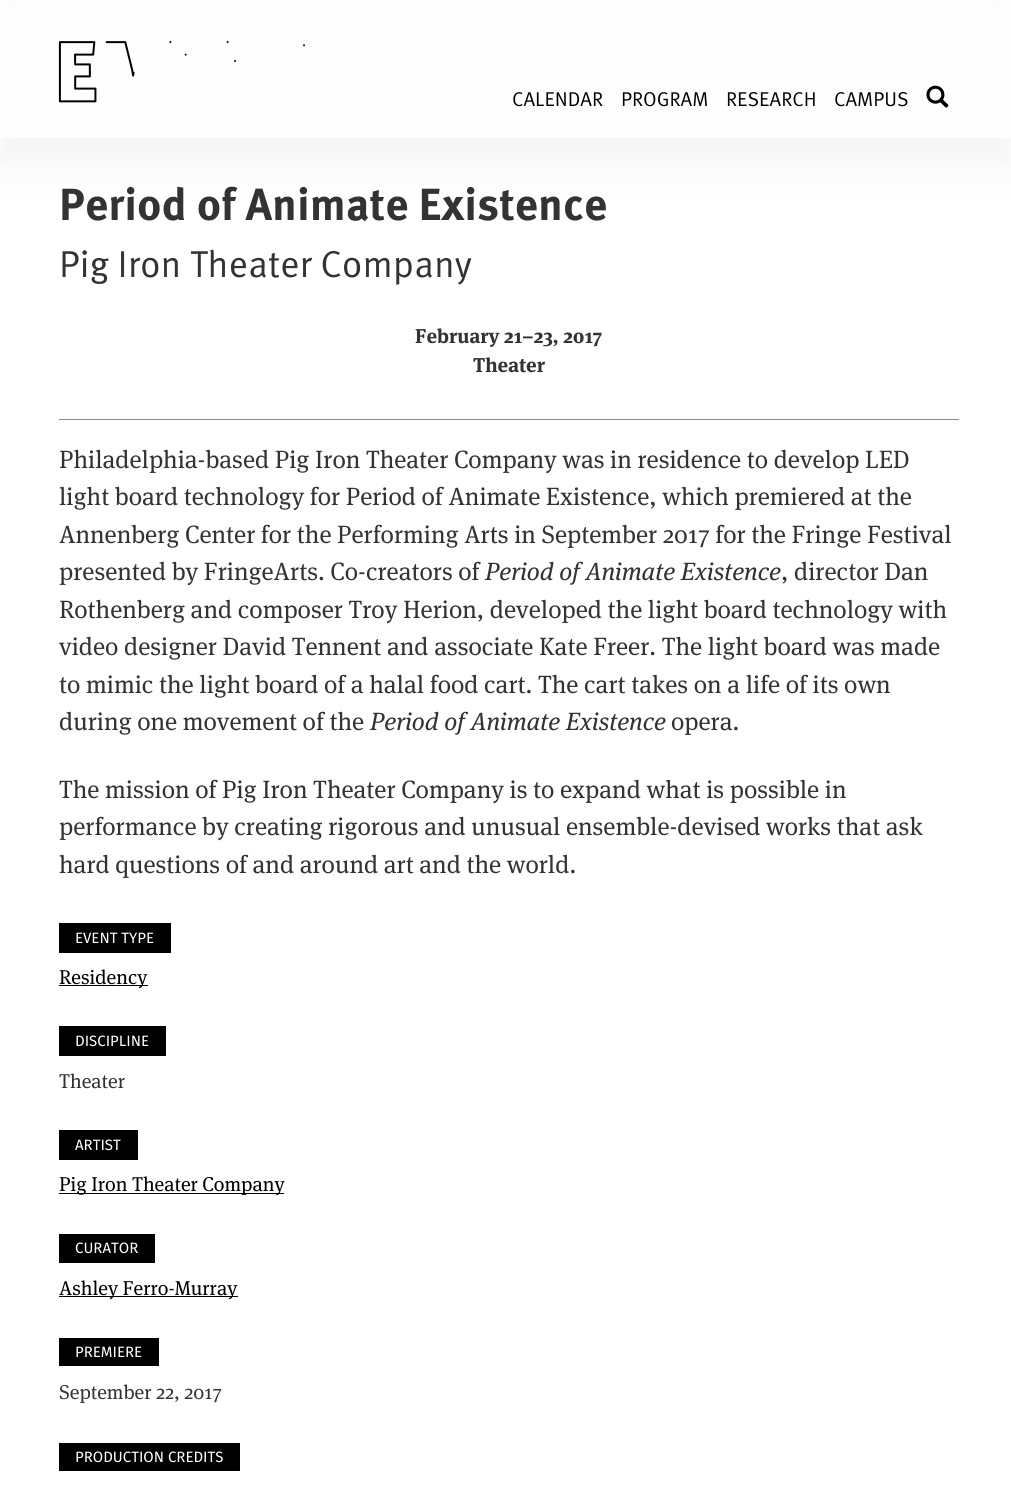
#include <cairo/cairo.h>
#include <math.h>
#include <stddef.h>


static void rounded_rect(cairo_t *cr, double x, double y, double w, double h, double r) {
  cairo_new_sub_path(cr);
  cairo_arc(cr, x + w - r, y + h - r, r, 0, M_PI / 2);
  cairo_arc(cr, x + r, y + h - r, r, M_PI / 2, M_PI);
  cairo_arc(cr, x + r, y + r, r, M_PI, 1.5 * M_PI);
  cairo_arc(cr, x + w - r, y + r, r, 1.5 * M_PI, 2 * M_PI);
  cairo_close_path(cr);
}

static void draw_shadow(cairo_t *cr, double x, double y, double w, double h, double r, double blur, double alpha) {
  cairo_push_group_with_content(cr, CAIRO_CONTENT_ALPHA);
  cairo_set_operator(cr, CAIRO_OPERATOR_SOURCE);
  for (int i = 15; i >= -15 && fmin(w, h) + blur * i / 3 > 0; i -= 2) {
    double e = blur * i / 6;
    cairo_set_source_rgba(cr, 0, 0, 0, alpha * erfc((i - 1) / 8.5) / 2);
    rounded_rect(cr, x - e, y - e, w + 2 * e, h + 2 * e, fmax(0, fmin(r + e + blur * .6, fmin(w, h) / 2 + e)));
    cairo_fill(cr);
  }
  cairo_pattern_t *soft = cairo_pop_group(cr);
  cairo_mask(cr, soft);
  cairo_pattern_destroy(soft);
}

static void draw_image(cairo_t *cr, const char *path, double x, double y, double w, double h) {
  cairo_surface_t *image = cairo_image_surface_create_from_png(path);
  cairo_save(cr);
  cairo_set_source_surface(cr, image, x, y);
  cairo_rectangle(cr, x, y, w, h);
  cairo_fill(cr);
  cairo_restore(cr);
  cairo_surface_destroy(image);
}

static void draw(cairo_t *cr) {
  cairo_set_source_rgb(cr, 1, 1, 1);
  cairo_paint(cr);
  cairo_set_source_rgb(cr, 0, 0, 0);
  draw_shadow(cr, 0, 25, 1011, 138, 0, 25, 0.05);
  cairo_set_source_rgb(cr, 254 / 255.0, 254 / 255.0, 254 / 255.0);
  cairo_rectangle(cr, 0, 10, 1011, 128);
  cairo_fill(cr);
  draw_image(cr, "images/1.png", 58, 41, 247, 62);
  draw_image(cr, "images/2.png", 926, 85, 23, 23);
  cairo_set_source_rgb(cr, 138 / 255.0, 138 / 255.0, 138 / 255.0);
  cairo_rectangle(cr, 59, 419, 900, 1);
  cairo_fill(cr);
  cairo_set_source_rgb(cr, 0, 0, 0);
  cairo_rectangle(cr, 59, 923, 112, 30);
  cairo_fill(cr);
  cairo_rectangle(cr, 59, 985, 89, 1);
  cairo_fill(cr);
  cairo_rectangle(cr, 59, 1026, 107, 30);
  cairo_fill(cr);
  cairo_rectangle(cr, 59, 1130, 79, 30);
  cairo_fill(cr);
  cairo_rectangle(cr, 59, 1193, 225, 1);
  cairo_fill(cr);
  cairo_rectangle(cr, 59, 1234, 96, 29);
  cairo_fill(cr);
  cairo_rectangle(cr, 59, 1296, 179, 1);
  cairo_fill(cr);
  cairo_rectangle(cr, 59, 1338, 100, 28);
  cairo_fill(cr);
  cairo_rectangle(cr, 59, 1443, 181, 28);
  cairo_fill(cr);
  cairo_select_font_face(cr, "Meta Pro", CAIRO_FONT_SLANT_NORMAL, CAIRO_FONT_WEIGHT_NORMAL);
  cairo_set_font_size(cr, 20);
  cairo_move_to(cr, 512, 106);
  cairo_show_text(cr, "CALENDAR");
  cairo_move_to(cr, 621, 106);
  cairo_show_text(cr, "PROGRAM");
  cairo_move_to(cr, 726, 106);
  cairo_show_text(cr, "RESEARCH");
  cairo_move_to(cr, 834, 106);
  cairo_show_text(cr, "CAMPUS");
  cairo_select_font_face(cr, "Meta Pro", CAIRO_FONT_SLANT_NORMAL, CAIRO_FONT_WEIGHT_BOLD);
  cairo_set_font_size(cr, 45);
  cairo_set_source_rgb(cr, 51 / 255.0, 51 / 255.0, 51 / 255.0);
  cairo_move_to(cr, 59, 220);
  cairo_show_text(cr, "Period of Animate Existence");
  cairo_select_font_face(cr, "Meta Pro", CAIRO_FONT_SLANT_NORMAL, CAIRO_FONT_WEIGHT_NORMAL);
  cairo_set_font_size(cr, 37.5);
  cairo_move_to(cr, 59, 277);
  cairo_show_text(cr, "Pig Iron Theater Company");
  cairo_select_font_face(cr, "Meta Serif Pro", CAIRO_FONT_SLANT_NORMAL, CAIRO_FONT_WEIGHT_BOLD);
  cairo_set_font_size(cr, 20);
  cairo_move_to(cr, 415, 343);
  cairo_show_text(cr, "February 21–23, 2017");
  cairo_move_to(cr, 473, 372);
  cairo_show_text(cr, "Theater");
  cairo_select_font_face(cr, "Meta Serif Pro", CAIRO_FONT_SLANT_NORMAL, CAIRO_FONT_WEIGHT_NORMAL);
  cairo_set_font_size(cr, 25);
  cairo_move_to(cr, 59, 468);
  cairo_show_text(cr, "Philadelphia-based Pig Iron Theater Company was in residence to develop LED");
  cairo_move_to(cr, 59, 505);
  cairo_show_text(cr, "light board technology for Period of Animate Existence, which premiered at the");
  cairo_move_to(cr, 59, 543);
  cairo_show_text(cr, "Annenberg Center for the Performing Arts in September 2017 for the Fringe Festival");
  cairo_move_to(cr, 59, 580);
  cairo_show_text(cr, "presented by FringeArts. Co-creators of");
  cairo_select_font_face(cr, "Meta Serif Pro", CAIRO_FONT_SLANT_ITALIC, CAIRO_FONT_WEIGHT_NORMAL);
  cairo_move_to(cr, 485, 580);
  cairo_show_text(cr, "Period of Animate Existence");
  cairo_select_font_face(cr, "Meta Serif Pro", CAIRO_FONT_SLANT_NORMAL, CAIRO_FONT_WEIGHT_NORMAL);
  cairo_move_to(cr, 781, 580);
  cairo_show_text(cr, ", director Dan");
  cairo_move_to(cr, 59, 618);
  cairo_show_text(cr, "Rothenberg and composer Troy Herion, developed the light board technology with");
  cairo_move_to(cr, 59, 655);
  cairo_show_text(cr, "video designer David Tennent and associate Kate Freer. The light board was made");
  cairo_move_to(cr, 59, 693);
  cairo_show_text(cr, "to mimic the light board of a halal food cart. The cart takes on a life of its own");
  cairo_move_to(cr, 59, 730);
  cairo_show_text(cr, "during one movement of the");
  cairo_select_font_face(cr, "Meta Serif Pro", CAIRO_FONT_SLANT_ITALIC, CAIRO_FONT_WEIGHT_NORMAL);
  cairo_move_to(cr, 370, 730);
  cairo_show_text(cr, "Period of Animate Existence");
  cairo_select_font_face(cr, "Meta Serif Pro", CAIRO_FONT_SLANT_NORMAL, CAIRO_FONT_WEIGHT_NORMAL);
  cairo_move_to(cr, 671, 730);
  cairo_show_text(cr, "opera.");
  cairo_move_to(cr, 59, 798);
  cairo_show_text(cr, "The mission of Pig Iron Theater Company is to expand what is possible in");
  cairo_move_to(cr, 59, 835);
  cairo_show_text(cr, "performance by creating rigorous and unusual ensemble-devised works that ask");
  cairo_move_to(cr, 59, 873);
  cairo_show_text(cr, "hard questions of and around art and the world.");
  cairo_select_font_face(cr, "Fira Sans", CAIRO_FONT_SLANT_NORMAL, CAIRO_FONT_WEIGHT_NORMAL);
  cairo_set_font_size(cr, 15);
  cairo_set_source_rgb(cr, 1, 1, 1);
  cairo_move_to(cr, 75, 943);
  cairo_show_text(cr, "EVENT TYPE");
  cairo_select_font_face(cr, "Meta Serif Pro", CAIRO_FONT_SLANT_NORMAL, CAIRO_FONT_WEIGHT_NORMAL);
  cairo_set_font_size(cr, 20);
  cairo_set_source_rgb(cr, 0, 0, 0);
  cairo_move_to(cr, 59, 984);
  cairo_show_text(cr, "Residency");
  cairo_select_font_face(cr, "Fira Sans", CAIRO_FONT_SLANT_NORMAL, CAIRO_FONT_WEIGHT_NORMAL);
  cairo_set_font_size(cr, 15);
  cairo_set_source_rgb(cr, 1, 1, 1);
  cairo_move_to(cr, 75, 1046);
  cairo_show_text(cr, "DISCIPLINE");
  cairo_select_font_face(cr, "Meta Serif Pro", CAIRO_FONT_SLANT_NORMAL, CAIRO_FONT_WEIGHT_NORMAL);
  cairo_set_font_size(cr, 20);
  cairo_set_source_rgb(cr, 51 / 255.0, 51 / 255.0, 51 / 255.0);
  cairo_move_to(cr, 59, 1088);
  cairo_show_text(cr, "Theater");
  cairo_select_font_face(cr, "Fira Sans", CAIRO_FONT_SLANT_NORMAL, CAIRO_FONT_WEIGHT_NORMAL);
  cairo_set_font_size(cr, 15);
  cairo_set_source_rgb(cr, 1, 1, 1);
  cairo_move_to(cr, 75, 1150);
  cairo_show_text(cr, "ARTIST");
  cairo_select_font_face(cr, "Meta Serif Pro", CAIRO_FONT_SLANT_NORMAL, CAIRO_FONT_WEIGHT_NORMAL);
  cairo_set_font_size(cr, 20);
  cairo_set_source_rgb(cr, 0, 0, 0);
  cairo_move_to(cr, 59, 1191);
  cairo_show_text(cr, "Pig Iron Theater Company");
  cairo_select_font_face(cr, "Fira Sans", CAIRO_FONT_SLANT_NORMAL, CAIRO_FONT_WEIGHT_NORMAL);
  cairo_set_font_size(cr, 15);
  cairo_set_source_rgb(cr, 1, 1, 1);
  cairo_move_to(cr, 75, 1253);
  cairo_show_text(cr, "CURATOR");
  cairo_select_font_face(cr, "Meta Serif Pro", CAIRO_FONT_SLANT_NORMAL, CAIRO_FONT_WEIGHT_NORMAL);
  cairo_set_font_size(cr, 20);
  cairo_set_source_rgb(cr, 0, 0, 0);
  cairo_move_to(cr, 59, 1295);
  cairo_show_text(cr, "Ashley Ferro-Murray");
  cairo_select_font_face(cr, "Fira Sans", CAIRO_FONT_SLANT_NORMAL, CAIRO_FONT_WEIGHT_NORMAL);
  cairo_set_font_size(cr, 15);
  cairo_set_source_rgb(cr, 1, 1, 1);
  cairo_move_to(cr, 75, 1357);
  cairo_show_text(cr, "PREMIERE");
  cairo_select_font_face(cr, "Meta Serif Pro", CAIRO_FONT_SLANT_NORMAL, CAIRO_FONT_WEIGHT_NORMAL);
  cairo_set_font_size(cr, 20);
  cairo_set_source_rgb(cr, 51 / 255.0, 51 / 255.0, 51 / 255.0);
  cairo_move_to(cr, 59, 1399);
  cairo_show_text(cr, "September 22, 2017");
  cairo_select_font_face(cr, "Fira Sans", CAIRO_FONT_SLANT_NORMAL, CAIRO_FONT_WEIGHT_NORMAL);
  cairo_set_font_size(cr, 15);
  cairo_set_source_rgb(cr, 1, 1, 1);
  cairo_move_to(cr, 75, 1462);
  cairo_show_text(cr, "PRODUCTION CREDITS");
}

int main(void) {
  cairo_surface_t *surface = cairo_image_surface_create(CAIRO_FORMAT_RGB24, 1011, 1499);
  cairo_t *cr = cairo_create(surface);
  cairo_font_options_t *options = cairo_font_options_create();
  cairo_font_options_set_hint_metrics(options, CAIRO_HINT_METRICS_OFF);
  cairo_font_options_set_hint_style(options, CAIRO_HINT_STYLE_NONE);
  cairo_set_font_options(cr, options);
  cairo_set_miter_limit(cr, 4);
  draw(cr);
  cairo_surface_write_to_png(surface, "out.png");
  cairo_font_options_destroy(options);
  cairo_destroy(cr);
  cairo_surface_destroy(surface);
  return 0;
}
